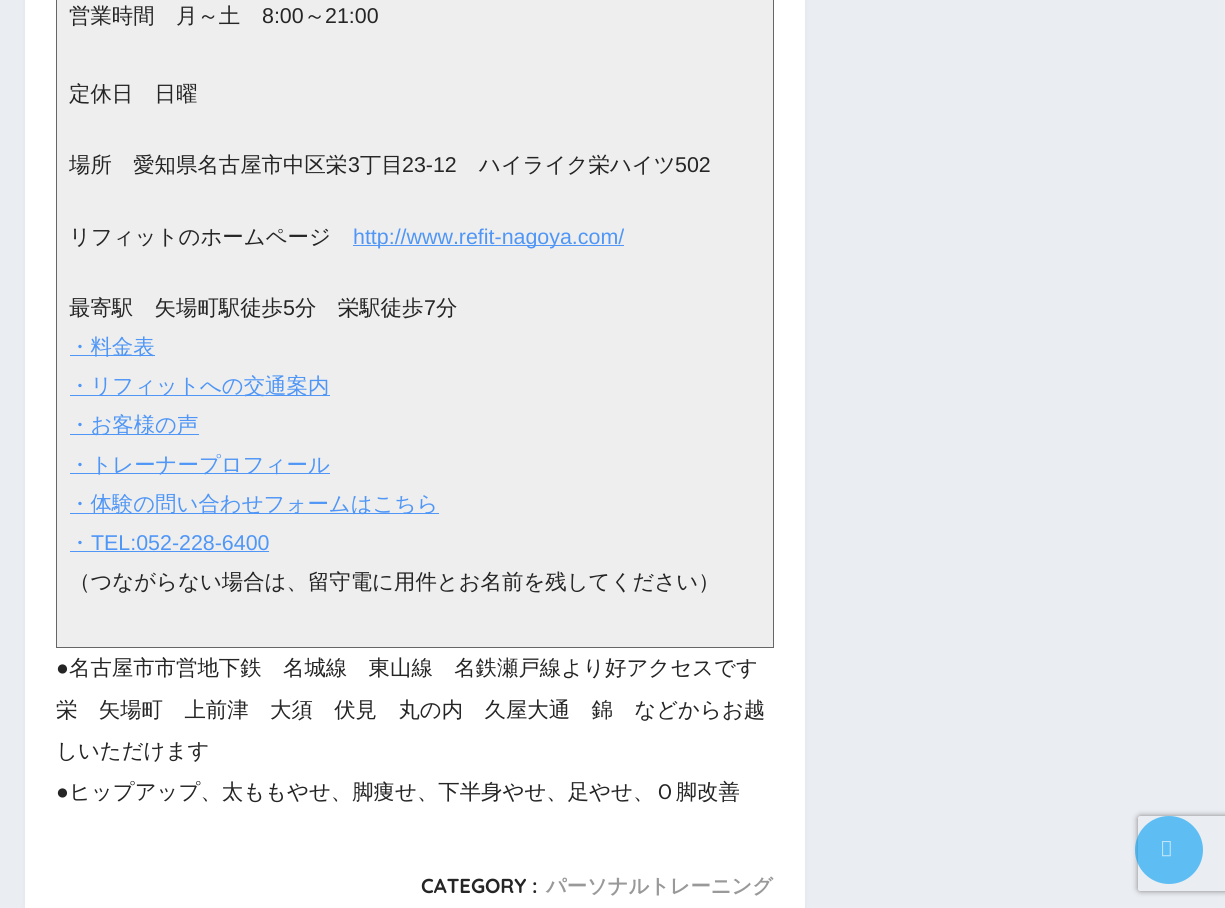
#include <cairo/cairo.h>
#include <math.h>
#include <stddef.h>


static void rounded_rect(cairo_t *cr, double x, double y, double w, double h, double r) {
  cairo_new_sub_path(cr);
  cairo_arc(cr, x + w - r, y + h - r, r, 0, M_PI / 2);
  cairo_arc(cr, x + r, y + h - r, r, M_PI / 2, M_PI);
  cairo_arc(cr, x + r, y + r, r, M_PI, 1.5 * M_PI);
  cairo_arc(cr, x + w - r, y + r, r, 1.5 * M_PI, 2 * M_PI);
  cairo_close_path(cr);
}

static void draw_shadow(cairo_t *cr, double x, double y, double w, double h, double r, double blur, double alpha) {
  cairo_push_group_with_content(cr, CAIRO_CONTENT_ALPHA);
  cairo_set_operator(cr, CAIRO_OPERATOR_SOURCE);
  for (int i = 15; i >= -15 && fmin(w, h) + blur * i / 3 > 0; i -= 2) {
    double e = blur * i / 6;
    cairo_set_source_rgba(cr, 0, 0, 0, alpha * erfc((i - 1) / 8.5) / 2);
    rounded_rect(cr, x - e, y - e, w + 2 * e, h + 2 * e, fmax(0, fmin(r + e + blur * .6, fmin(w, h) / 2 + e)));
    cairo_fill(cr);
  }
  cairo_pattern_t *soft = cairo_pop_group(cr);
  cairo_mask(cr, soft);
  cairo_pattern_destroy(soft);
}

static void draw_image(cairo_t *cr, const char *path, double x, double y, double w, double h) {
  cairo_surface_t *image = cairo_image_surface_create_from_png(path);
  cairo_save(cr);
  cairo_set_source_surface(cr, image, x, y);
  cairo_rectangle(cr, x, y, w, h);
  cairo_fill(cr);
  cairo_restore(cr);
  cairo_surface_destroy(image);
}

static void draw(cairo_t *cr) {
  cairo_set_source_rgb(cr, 234 / 255.0, 237 / 255.0, 242 / 255.0);
  cairo_paint(cr);
  cairo_set_source_rgb(cr, 67 / 255.0, 133 / 255.0, 187 / 255.0);
  draw_shadow(cr, 25, -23, 780, 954, 15, 2.5, 0.07);
  cairo_set_source_rgb(cr, 1, 1, 1);
  cairo_rectangle(cr, 25, 0, 780, 908);
  cairo_fill(cr);
  cairo_set_source_rgb(cr, 238 / 255.0, 238 / 255.0, 238 / 255.0);
  cairo_rectangle(cr, 56.5, -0.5, 717, 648);
  cairo_fill_preserve(cr);
  cairo_set_source_rgb(cr, 102 / 255.0, 102 / 255.0, 102 / 255.0);
  cairo_set_line_width(cr, 1);
  cairo_stroke(cr);
  cairo_set_source_rgb(cr, 79 / 255.0, 150 / 255.0, 246 / 255.0);
  cairo_rectangle(cr, 353, 245, 271, 1);
  cairo_fill(cr);
  cairo_rectangle(cr, 70, 355, 85, 1);
  cairo_fill(cr);
  cairo_rectangle(cr, 70, 395, 260, 1);
  cairo_fill(cr);
  cairo_rectangle(cr, 70, 434, 129, 1);
  cairo_fill(cr);
  cairo_rectangle(cr, 70, 473, 260, 1);
  cairo_fill(cr);
  cairo_rectangle(cr, 70, 513, 369, 1);
  cairo_fill(cr);
  cairo_rectangle(cr, 70, 551, 199, 1);
  cairo_fill(cr);
  cairo_save(cr);
  cairo_set_fill_rule(cr, CAIRO_FILL_RULE_EVEN_ODD);
  cairo_new_path(cr);
  cairo_move_to(cr, 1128, 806);
  cairo_line_to(cr, 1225, 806);
  cairo_line_to(cr, 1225, 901);
  cairo_line_to(cr, 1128, 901);
  cairo_close_path(cr);
  cairo_move_to(cr, 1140.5, 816);
  cairo_line_to(cr, 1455.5, 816);
  cairo_curve_to(cr, 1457, 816, 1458, 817, 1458, 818.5);
  cairo_line_to(cr, 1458, 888.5);
  cairo_curve_to(cr, 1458, 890, 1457, 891, 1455.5, 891);
  cairo_line_to(cr, 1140.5, 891);
  cairo_curve_to(cr, 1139, 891, 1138, 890, 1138, 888.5);
  cairo_line_to(cr, 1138, 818.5);
  cairo_curve_to(cr, 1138, 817, 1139, 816, 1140.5, 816);
  cairo_close_path(cr);
  cairo_clip(cr);
  cairo_set_source_rgb(cr, 128 / 255.0, 128 / 255.0, 128 / 255.0);
  draw_shadow(cr, 1138, 816, 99, 75, 2.5, 3, 1);
  cairo_restore(cr);
  cairo_set_source_rgba(cr, 0, 158 / 255.0, 243 / 255.0, 0.6);
  cairo_arc(cr, 1169, 850, 34, 0, 2 * M_PI);
  cairo_fill(cr);
  draw_image(cr, "images/1.png", 1162, 841, 9, 16);
  cairo_select_font_face(cr, "WenQuanYi Zen Hei Medium", CAIRO_FONT_SLANT_NORMAL, CAIRO_FONT_WEIGHT_NORMAL);
  cairo_set_font_size(cr, 21.4);
  cairo_set_source_rgb(cr, 37 / 255.0, 37 / 255.0, 37 / 255.0);
  cairo_move_to(cr, 69, 23);
  cairo_show_text(cr, "営業時間　月～土");
  cairo_select_font_face(cr, "Liberation Sans", CAIRO_FONT_SLANT_NORMAL, CAIRO_FONT_WEIGHT_NORMAL);
  cairo_move_to(cr, 262, 23);
  cairo_show_text(cr, "8:00");
  cairo_select_font_face(cr, "WenQuanYi Zen Hei Medium", CAIRO_FONT_SLANT_NORMAL, CAIRO_FONT_WEIGHT_NORMAL);
  cairo_move_to(cr, 304, 23);
  cairo_show_text(cr, "～");
  cairo_select_font_face(cr, "Liberation Sans", CAIRO_FONT_SLANT_NORMAL, CAIRO_FONT_WEIGHT_NORMAL);
  cairo_move_to(cr, 325, 23);
  cairo_show_text(cr, "21:00");
  cairo_select_font_face(cr, "WenQuanYi Zen Hei Medium", CAIRO_FONT_SLANT_NORMAL, CAIRO_FONT_WEIGHT_NORMAL);
  cairo_move_to(cr, 69, 101);
  cairo_show_text(cr, "定休日　日曜");
  cairo_move_to(cr, 69, 172);
  cairo_show_text(cr, "場所　愛知県名古屋市中区栄");
  cairo_select_font_face(cr, "Liberation Sans", CAIRO_FONT_SLANT_NORMAL, CAIRO_FONT_WEIGHT_NORMAL);
  cairo_move_to(cr, 348, 172);
  cairo_show_text(cr, "3");
  cairo_select_font_face(cr, "WenQuanYi Zen Hei Medium", CAIRO_FONT_SLANT_NORMAL, CAIRO_FONT_WEIGHT_NORMAL);
  cairo_move_to(cr, 360, 172);
  cairo_show_text(cr, "丁目");
  cairo_select_font_face(cr, "Liberation Sans", CAIRO_FONT_SLANT_NORMAL, CAIRO_FONT_WEIGHT_NORMAL);
  cairo_move_to(cr, 402, 172);
  cairo_show_text(cr, "23-12");
  cairo_select_font_face(cr, "WenQuanYi Zen Hei Medium", CAIRO_FONT_SLANT_NORMAL, CAIRO_FONT_WEIGHT_NORMAL);
  cairo_move_to(cr, 479, 172);
  cairo_show_text(cr, "ハイライク栄ハイツ");
  cairo_select_font_face(cr, "Liberation Sans", CAIRO_FONT_SLANT_NORMAL, CAIRO_FONT_WEIGHT_NORMAL);
  cairo_move_to(cr, 675, 172);
  cairo_show_text(cr, "502");
  cairo_select_font_face(cr, "WenQuanYi Zen Hei Medium", CAIRO_FONT_SLANT_NORMAL, CAIRO_FONT_WEIGHT_NORMAL);
  cairo_move_to(cr, 69, 244);
  cairo_show_text(cr, "リフィットのホームページ");
  cairo_select_font_face(cr, "Liberation Sans", CAIRO_FONT_SLANT_NORMAL, CAIRO_FONT_WEIGHT_NORMAL);
  cairo_set_source_rgb(cr, 79 / 255.0, 150 / 255.0, 246 / 255.0);
  cairo_move_to(cr, 353, 244);
  cairo_show_text(cr, "http://www.refit-nagoya.com/");
  cairo_select_font_face(cr, "WenQuanYi Zen Hei Medium", CAIRO_FONT_SLANT_NORMAL, CAIRO_FONT_WEIGHT_NORMAL);
  cairo_set_source_rgb(cr, 37 / 255.0, 37 / 255.0, 37 / 255.0);
  cairo_move_to(cr, 69, 315);
  cairo_show_text(cr, "最寄駅　矢場町駅徒歩");
  cairo_select_font_face(cr, "Liberation Sans", CAIRO_FONT_SLANT_NORMAL, CAIRO_FONT_WEIGHT_NORMAL);
  cairo_move_to(cr, 283, 315);
  cairo_show_text(cr, "5");
  cairo_select_font_face(cr, "WenQuanYi Zen Hei Medium", CAIRO_FONT_SLANT_NORMAL, CAIRO_FONT_WEIGHT_NORMAL);
  cairo_move_to(cr, 295, 315);
  cairo_show_text(cr, "分　栄駅徒歩");
  cairo_select_font_face(cr, "Liberation Sans", CAIRO_FONT_SLANT_NORMAL, CAIRO_FONT_WEIGHT_NORMAL);
  cairo_move_to(cr, 424, 315);
  cairo_show_text(cr, "7");
  cairo_select_font_face(cr, "WenQuanYi Zen Hei Medium", CAIRO_FONT_SLANT_NORMAL, CAIRO_FONT_WEIGHT_NORMAL);
  cairo_move_to(cr, 436, 315);
  cairo_show_text(cr, "分");
  cairo_set_source_rgb(cr, 79 / 255.0, 150 / 255.0, 246 / 255.0);
  cairo_move_to(cr, 69, 354);
  cairo_show_text(cr, "・料金表");
  cairo_move_to(cr, 69, 393);
  cairo_show_text(cr, "・リフィットへの交通案内");
  cairo_move_to(cr, 69, 432);
  cairo_show_text(cr, "・お客様の声");
  cairo_move_to(cr, 69, 472);
  cairo_show_text(cr, "・トレーナープロフィール");
  cairo_move_to(cr, 69, 511);
  cairo_show_text(cr, "・体験の問い合わせフォームはこちら");
  cairo_move_to(cr, 69, 550);
  cairo_show_text(cr, "・");
  cairo_select_font_face(cr, "Liberation Sans", CAIRO_FONT_SLANT_NORMAL, CAIRO_FONT_WEIGHT_NORMAL);
  cairo_move_to(cr, 91, 550);
  cairo_show_text(cr, "TEL:052-228-6400");
  cairo_select_font_face(cr, "WenQuanYi Zen Hei Medium", CAIRO_FONT_SLANT_NORMAL, CAIRO_FONT_WEIGHT_NORMAL);
  cairo_set_source_rgb(cr, 37 / 255.0, 37 / 255.0, 37 / 255.0);
  cairo_move_to(cr, 69, 589);
  cairo_show_text(cr, "（つながらない場合は、留守電に用件とお名前を残してください）");
  cairo_select_font_face(cr, "Liberation Sans", CAIRO_FONT_SLANT_NORMAL, CAIRO_FONT_WEIGHT_NORMAL);
  cairo_move_to(cr, 56, 675);
  cairo_show_text(cr, "●");
  cairo_select_font_face(cr, "WenQuanYi Zen Hei Medium", CAIRO_FONT_SLANT_NORMAL, CAIRO_FONT_WEIGHT_NORMAL);
  cairo_move_to(cr, 69, 675);
  cairo_show_text(cr, "名古屋市市営地下鉄　名城線　東山線　名鉄瀬戸線より好アクセスです");
  cairo_move_to(cr, 56, 717);
  cairo_show_text(cr, "栄　矢場町　上前津　大須　伏見　丸の内　久屋大通　錦　などからお越");
  cairo_move_to(cr, 56, 758);
  cairo_show_text(cr, "しいただけます");
  cairo_select_font_face(cr, "Liberation Sans", CAIRO_FONT_SLANT_NORMAL, CAIRO_FONT_WEIGHT_NORMAL);
  cairo_move_to(cr, 56, 799);
  cairo_show_text(cr, "●");
  cairo_select_font_face(cr, "WenQuanYi Zen Hei Medium", CAIRO_FONT_SLANT_NORMAL, CAIRO_FONT_WEIGHT_NORMAL);
  cairo_move_to(cr, 69, 799);
  cairo_show_text(cr, "ヒップアップ、太ももやせ、脚痩せ、下半身やせ、足やせ、Ｏ脚改善");
  cairo_select_font_face(cr, "Quicksand", CAIRO_FONT_SLANT_NORMAL, CAIRO_FONT_WEIGHT_BOLD);
  cairo_set_font_size(cr, 20.25);
  cairo_move_to(cr, 421, 893);
  cairo_show_text(cr, "CATEGORY :");
  cairo_select_font_face(cr, "WenQuanYi Zen Hei", CAIRO_FONT_SLANT_NORMAL, CAIRO_FONT_WEIGHT_BOLD);
  cairo_set_source_rgb(cr, 153 / 255.0, 153 / 255.0, 153 / 255.0);
  cairo_move_to(cr, 546, 893);
  cairo_show_text(cr, "パーソナルトレーニング");
}

int main(void) {
  cairo_surface_t *surface = cairo_image_surface_create(CAIRO_FORMAT_RGB24, 1225, 908);
  cairo_t *cr = cairo_create(surface);
  cairo_font_options_t *options = cairo_font_options_create();
  cairo_font_options_set_hint_metrics(options, CAIRO_HINT_METRICS_OFF);
  cairo_font_options_set_hint_style(options, CAIRO_HINT_STYLE_NONE);
  cairo_set_font_options(cr, options);
  cairo_set_miter_limit(cr, 4);
  draw(cr);
  cairo_surface_write_to_png(surface, "out.png");
  cairo_font_options_destroy(options);
  cairo_destroy(cr);
  cairo_surface_destroy(surface);
  return 0;
}
